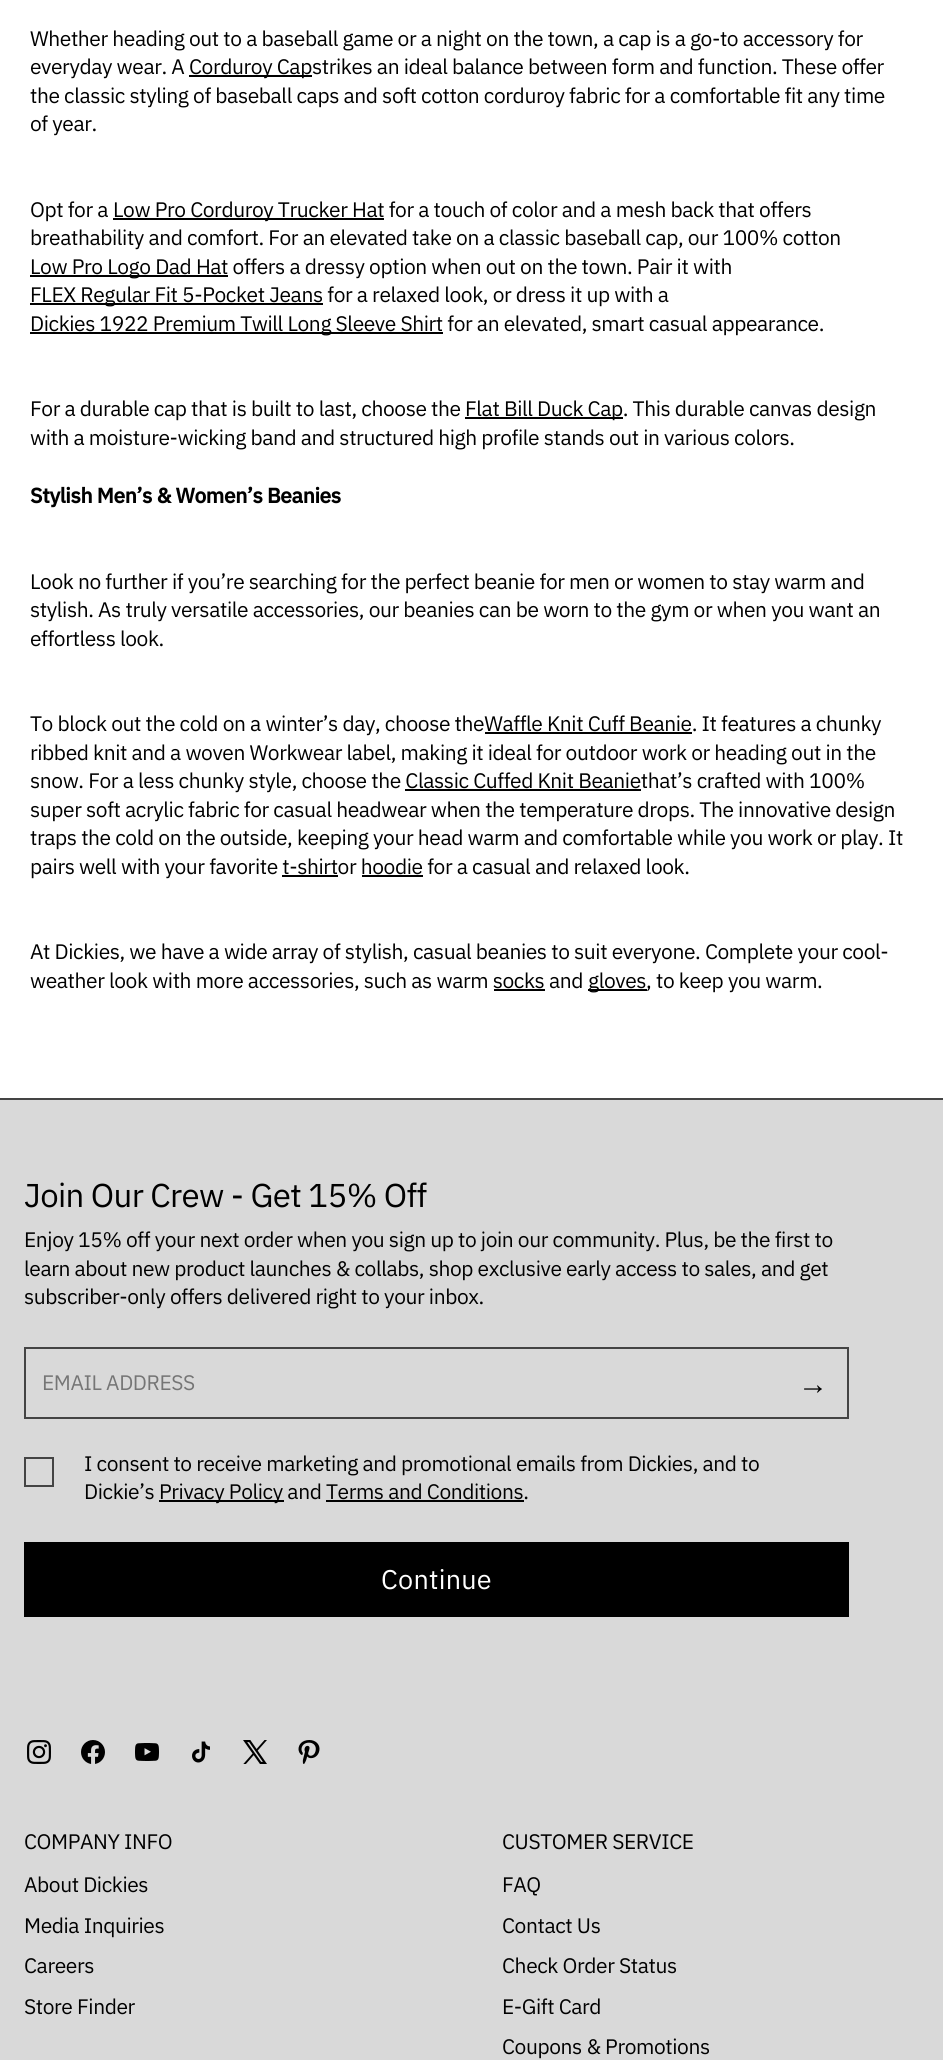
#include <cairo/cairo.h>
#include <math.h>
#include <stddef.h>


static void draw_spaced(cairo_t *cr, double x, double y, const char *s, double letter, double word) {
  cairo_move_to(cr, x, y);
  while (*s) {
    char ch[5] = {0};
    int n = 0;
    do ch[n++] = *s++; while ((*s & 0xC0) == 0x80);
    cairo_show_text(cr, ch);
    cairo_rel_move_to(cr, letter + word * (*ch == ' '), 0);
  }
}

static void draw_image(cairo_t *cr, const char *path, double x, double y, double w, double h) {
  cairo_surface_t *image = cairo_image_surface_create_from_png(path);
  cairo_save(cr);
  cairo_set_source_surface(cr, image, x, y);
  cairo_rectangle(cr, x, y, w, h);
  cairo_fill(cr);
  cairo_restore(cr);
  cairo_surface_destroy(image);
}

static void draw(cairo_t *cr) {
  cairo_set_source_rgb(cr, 1, 1, 1);
  cairo_paint(cr);
  cairo_set_source_rgb(cr, 0, 0, 0);
  cairo_rectangle(cr, 189, 75, 123, 2);
  cairo_fill(cr);
  cairo_rectangle(cr, 113, 218, 271, 2);
  cairo_fill(cr);
  cairo_rectangle(cr, 30, 275, 198, 2);
  cairo_fill(cr);
  cairo_rectangle(cr, 30, 303, 293, 2);
  cairo_fill(cr);
  cairo_rectangle(cr, 30, 332, 413, 2);
  cairo_fill(cr);
  cairo_rectangle(cr, 465, 417, 158, 2);
  cairo_fill(cr);
  cairo_rectangle(cr, 485, 732, 207, 2);
  cairo_fill(cr);
  cairo_rectangle(cr, 405, 789, 236, 2);
  cairo_fill(cr);
  cairo_rectangle(cr, 282, 875, 56, 2);
  cairo_fill(cr);
  cairo_rectangle(cr, 362, 875, 61, 2);
  cairo_fill(cr);
  cairo_rectangle(cr, 588, 989, 59, 2);
  cairo_fill(cr);
  cairo_rectangle(cr, 494, 989, 51, 2);
  cairo_fill(cr);
  cairo_set_source_rgb(cr, 217 / 255.0, 217 / 255.0, 217 / 255.0);
  cairo_rectangle(cr, 0, 1100, 943, 960);
  cairo_fill(cr);
  cairo_set_source_rgb(cr, 68 / 255.0, 68 / 255.0, 68 / 255.0);
  cairo_rectangle(cr, 0, 1098, 943, 2);
  cairo_fill(cr);
  cairo_rectangle(cr, 25, 1348, 823, 70);
  cairo_stroke(cr);
  cairo_rectangle(cr, 25, 1458, 28, 28);
  cairo_stroke(cr);
  cairo_set_source_rgb(cr, 0, 0, 0);
  cairo_rectangle(cr, 159, 1500, 125, 2);
  cairo_fill(cr);
  cairo_rectangle(cr, 326, 1500, 198, 2);
  cairo_fill(cr);
  cairo_rectangle(cr, 24, 1542, 825, 75);
  cairo_fill(cr);
  draw_image(cr, "images/1.png", 27, 1740, 24, 24);
  draw_image(cr, "images/2.png", 81, 1740, 24, 24);
  draw_image(cr, "images/3.png", 135, 1743, 24, 18);
  draw_image(cr, "images/4.png", 192, 1741, 18, 22);
  draw_image(cr, "images/5.png", 243, 1740, 24, 24);
  draw_image(cr, "images/6.png", 298, 1740, 22, 24);
  cairo_select_font_face(cr, "IBM Plex Sans", CAIRO_FONT_SLANT_NORMAL, CAIRO_FONT_WEIGHT_NORMAL);
  cairo_set_font_size(cr, 21);
  draw_spaced(cr, 30, 46, "Whether heading out to a baseball game or a night on the town, a cap is a go-to accessory for", -0.42, 0);
  draw_spaced(cr, 30, 74, "everyday wear. A", -0.42, 0);
  draw_spaced(cr, 189, 74, "Corduroy Capstrikes an ideal balance between form and function. These offer", -0.42, 0);
  draw_spaced(cr, 30, 103, "the classic styling of baseball caps and soft cotton corduroy fabric for a comfortable fit any time", -0.42, 0);
  draw_spaced(cr, 30, 131, "of year.", -0.42, 0);
  draw_spaced(cr, 30, 217, "Opt for a", -0.42, 0);
  draw_spaced(cr, 113, 217, "Low Pro Corduroy Trucker Hat for a touch of color and a mesh back that offers", -0.42, 0);
  draw_spaced(cr, 30, 245, "breathability and comfort. For an elevated take on a classic baseball cap, our 100% cotton", -0.42, 0);
  draw_spaced(cr, 30, 274, "Low Pro Logo Dad Hat offers a dressy option when out on the town. Pair it with", -0.42, 0);
  draw_spaced(cr, 30, 302, "FLEX Regular Fit 5-Pocket Jeans for a relaxed look, or dress it up with a", -0.42, 0);
  draw_spaced(cr, 30, 331, "Dickies 1922 Premium Twill Long Sleeve Shirt for an elevated, smart casual appearance.", -0.42, 0);
  draw_spaced(cr, 30, 416, "For a durable cap that is built to last, choose the", -0.42, 0);
  draw_spaced(cr, 465, 416, "Flat Bill Duck Cap. This durable canvas design", -0.42, 0);
  draw_spaced(cr, 30, 445, "with a moisture-wicking band and structured high profile stands out in various colors.", -0.42, 0);
  cairo_select_font_face(cr, "IBM Plex Sans", CAIRO_FONT_SLANT_NORMAL, CAIRO_FONT_WEIGHT_BOLD);
  draw_spaced(cr, 30, 503, "Stylish Men’s & Women’s Beanies", -0.42, 0);
  cairo_select_font_face(cr, "IBM Plex Sans", CAIRO_FONT_SLANT_NORMAL, CAIRO_FONT_WEIGHT_NORMAL);
  draw_spaced(cr, 30, 589, "Look no further if you’re searching for the perfect beanie for men or women to stay warm and", -0.42, 0);
  draw_spaced(cr, 30, 617, "stylish. As truly versatile accessories, our beanies can be worn to the gym or when you want an", -0.42, 0);
  draw_spaced(cr, 30, 646, "effortless look.", -0.42, 0);
  draw_spaced(cr, 30, 731, "To block out the cold on a winter’s day, choose theWaffle Knit Cuff Beanie. It features a chunky", -0.42, 0);
  draw_spaced(cr, 30, 760, "ribbed knit and a woven Workwear label, making it ideal for outdoor work or heading out in the", -0.42, 0);
  draw_spaced(cr, 30, 788, "snow. For a less chunky style, choose the Classic Cuffed Knit Beaniethat’s crafted with 100%", -0.42, 0);
  draw_spaced(cr, 30, 817, "super soft acrylic fabric for casual headwear when the temperature drops. The innovative design", -0.42, 0);
  draw_spaced(cr, 30, 845, "traps the cold on the outside, keeping your head warm and comfortable while you work or play. It", -0.42, 0);
  draw_spaced(cr, 30, 874, "pairs well with your favorite t-shirtor hoodie for a casual and relaxed look.", -0.42, 0);
  draw_spaced(cr, 30, 959, "At Dickies, we have a wide array of stylish, casual beanies to suit everyone. Complete your cool-", -0.42, 0);
  draw_spaced(cr, 30, 988, "weather look with more accessories, such as warm socks and", -0.42, 0);
  draw_spaced(cr, 588, 988, "gloves, to keep you warm.", -0.42, 0);
  cairo_set_font_size(cr, 33);
  draw_spaced(cr, 24, 1207, "Join Our Crew - Get 15% Off", -0.65, 0);
  cairo_set_font_size(cr, 21);
  draw_spaced(cr, 24, 1247, "Enjoy 15% off your next order when you sign up to join our community. Plus, be the first to", -0.42, 0);
  draw_spaced(cr, 24, 1276, "learn about new product launches & collabs, shop exclusive early access to sales, and get", -0.42, 0);
  draw_spaced(cr, 24, 1304, "subscriber-only offers delivered right to your inbox.", -0.42, 0);
  cairo_set_source_rgb(cr, 117 / 255.0, 117 / 255.0, 117 / 255.0);
  draw_spaced(cr, 42, 1390, "EMAIL ADDRESS", -0.42, 0);
  cairo_select_font_face(cr, "Liberation Sans", CAIRO_FONT_SLANT_NORMAL, CAIRO_FONT_WEIGHT_NORMAL);
  cairo_set_font_size(cr, 30);
  cairo_set_source_rgb(cr, 0, 0, 0);
  draw_spaced(cr, 798, 1394, "→", -0.42, 0);
  cairo_select_font_face(cr, "IBM Plex Sans", CAIRO_FONT_SLANT_NORMAL, CAIRO_FONT_WEIGHT_NORMAL);
  cairo_set_font_size(cr, 21);
  draw_spaced(cr, 84, 1471, "I consent to receive marketing and promotional emails from Dickies, and to", -0.42, 0);
  draw_spaced(cr, 84, 1499, "Dickie’s", -0.42, 0);
  draw_spaced(cr, 159, 1499, "Privacy Policy and Terms and Conditions.", -0.42, 0);
  cairo_set_font_size(cr, 27);
  cairo_set_source_rgb(cr, 1, 1, 1);
  draw_spaced(cr, 381, 1589, "Continue", 0.25, 0);
  cairo_set_font_size(cr, 21);
  cairo_set_source_rgb(cr, 0, 0, 0);
  draw_spaced(cr, 24, 1849, "COMPANY INFO", -0.42, 0);
  draw_spaced(cr, 24, 1892, "About Dickies", -0.42, 0);
  draw_spaced(cr, 24, 1933, "Media Inquiries", -0.42, 0);
  draw_spaced(cr, 24, 1973, "Careers", -0.42, 0);
  draw_spaced(cr, 24, 2014, "Store Finder", -0.42, 0);
  draw_spaced(cr, 502, 1849, "CUSTOMER SERVICE", -0.42, 0);
  draw_spaced(cr, 502, 1892, "FAQ", -0.42, 0);
  draw_spaced(cr, 502, 1933, "Contact Us", -0.42, 0);
  draw_spaced(cr, 502, 1973, "Check Order Status", -0.42, 0);
  draw_spaced(cr, 502, 2014, "E-Gift Card", -0.42, 0);
  draw_spaced(cr, 502, 2054, "Coupons & Promotions", -0.42, 0);
}

int main(void) {
  cairo_surface_t *surface = cairo_image_surface_create(CAIRO_FORMAT_RGB24, 943, 2060);
  cairo_t *cr = cairo_create(surface);
  cairo_font_options_t *options = cairo_font_options_create();
  cairo_font_options_set_hint_metrics(options, CAIRO_HINT_METRICS_OFF);
  cairo_font_options_set_hint_style(options, CAIRO_HINT_STYLE_NONE);
  cairo_set_font_options(cr, options);
  cairo_set_miter_limit(cr, 4);
  draw(cr);
  cairo_surface_write_to_png(surface, "out.png");
  cairo_font_options_destroy(options);
  cairo_destroy(cr);
  cairo_surface_destroy(surface);
  return 0;
}
